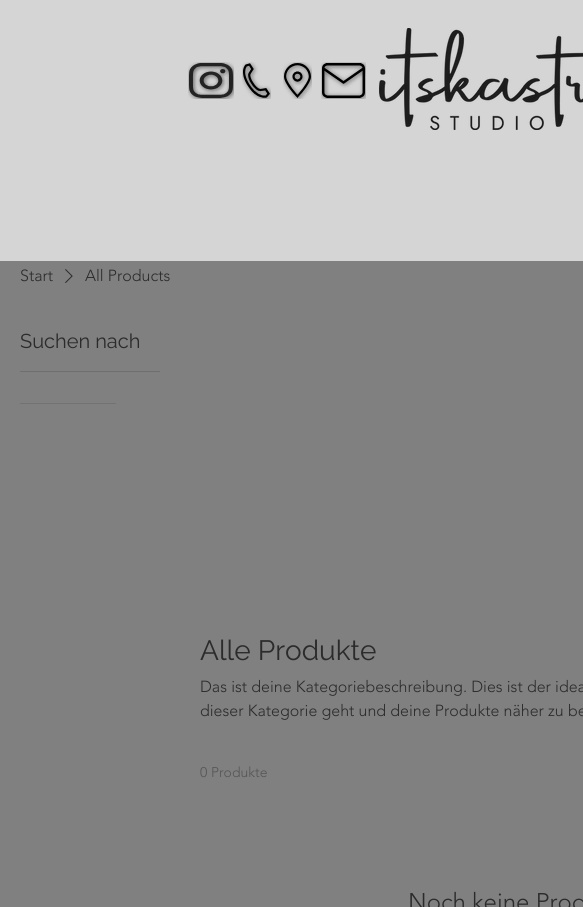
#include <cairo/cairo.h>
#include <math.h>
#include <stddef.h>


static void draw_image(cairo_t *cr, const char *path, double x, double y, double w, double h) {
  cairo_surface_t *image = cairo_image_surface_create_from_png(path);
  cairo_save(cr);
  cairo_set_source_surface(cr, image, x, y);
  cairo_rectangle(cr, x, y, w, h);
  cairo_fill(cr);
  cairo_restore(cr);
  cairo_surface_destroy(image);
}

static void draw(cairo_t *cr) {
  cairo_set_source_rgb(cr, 128 / 255.0, 128 / 255.0, 128 / 255.0);
  cairo_paint(cr);
  cairo_set_source_rgb(cr, 213 / 255.0, 213 / 255.0, 213 / 255.0);
  cairo_rectangle(cr, 0, 0, 583, 261);
  cairo_fill(cr);
  draw_image(cr, "images/1.png", 188, 62, 46, 37);
  draw_image(cr, "images/2.png", 242, 62, 29, 37);
  draw_image(cr, "images/3.png", 283, 62, 29, 37);
  draw_image(cr, "images/4.png", 321, 62, 45, 37);
  draw_image(cr, "images/5.png", 379, 28, 204, 102);
  draw_image(cr, "images/6.png", 65, 269, 8, 14);
  cairo_set_source_rgb(cr, 111 / 255.0, 111 / 255.0, 111 / 255.0);
  cairo_rectangle(cr, 20, 371, 140, 1);
  cairo_fill(cr);
  cairo_set_source_rgb(cr, 96 / 255.0, 121 / 255.0, 128 / 255.0);
  cairo_rectangle(cr, 20, 403, 96, 1);
  cairo_fill(cr);
  cairo_select_font_face(cr, "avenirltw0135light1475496 Light", CAIRO_FONT_SLANT_NORMAL, CAIRO_FONT_WEIGHT_NORMAL);
  cairo_set_font_size(cr, 16);
  cairo_set_source_rgb(cr, 43 / 255.0, 43 / 255.0, 43 / 255.0);
  cairo_move_to(cr, 20, 281);
  cairo_show_text(cr, "Start");
  cairo_move_to(cr, 85, 281);
  cairo_show_text(cr, "All Products");
  cairo_select_font_face(cr, "Raleway", CAIRO_FONT_SLANT_NORMAL, CAIRO_FONT_WEIGHT_NORMAL);
  cairo_set_font_size(cr, 20);
  cairo_move_to(cr, 20, 348);
  cairo_show_text(cr, "Suchen nach");
  cairo_set_font_size(cr, 28);
  cairo_move_to(cr, 200, 660);
  cairo_show_text(cr, "Alle Produkte");
  cairo_select_font_face(cr, "avenirltw0135light1475496 Light", CAIRO_FONT_SLANT_NORMAL, CAIRO_FONT_WEIGHT_NORMAL);
  cairo_set_font_size(cr, 16);
  cairo_move_to(cr, 200, 692);
  cairo_show_text(cr, "Das ist deine Kategoriebeschreibung. Dies ist der idea");
  cairo_move_to(cr, 200, 716);
  cairo_show_text(cr, "dieser Kategorie geht und deine Produkte näher zu be");
  cairo_set_font_size(cr, 14);
  cairo_set_source_rgb(cr, 85 / 255.0, 85 / 255.0, 85 / 255.0);
  cairo_move_to(cr, 200, 777);
  cairo_show_text(cr, "0 Produkte");
  cairo_set_font_size(cr, 24);
  cairo_set_source_rgb(cr, 43 / 255.0, 43 / 255.0, 43 / 255.0);
  cairo_move_to(cr, 408, 910);
  cairo_show_text(cr, "Noch keine Prod");
}

int main(void) {
  cairo_surface_t *surface = cairo_image_surface_create(CAIRO_FORMAT_RGB24, 583, 907);
  cairo_t *cr = cairo_create(surface);
  cairo_font_options_t *options = cairo_font_options_create();
  cairo_font_options_set_hint_metrics(options, CAIRO_HINT_METRICS_OFF);
  cairo_font_options_set_hint_style(options, CAIRO_HINT_STYLE_NONE);
  cairo_set_font_options(cr, options);
  cairo_set_miter_limit(cr, 4);
  draw(cr);
  cairo_surface_write_to_png(surface, "out.png");
  cairo_font_options_destroy(options);
  cairo_destroy(cr);
  cairo_surface_destroy(surface);
  return 0;
}
